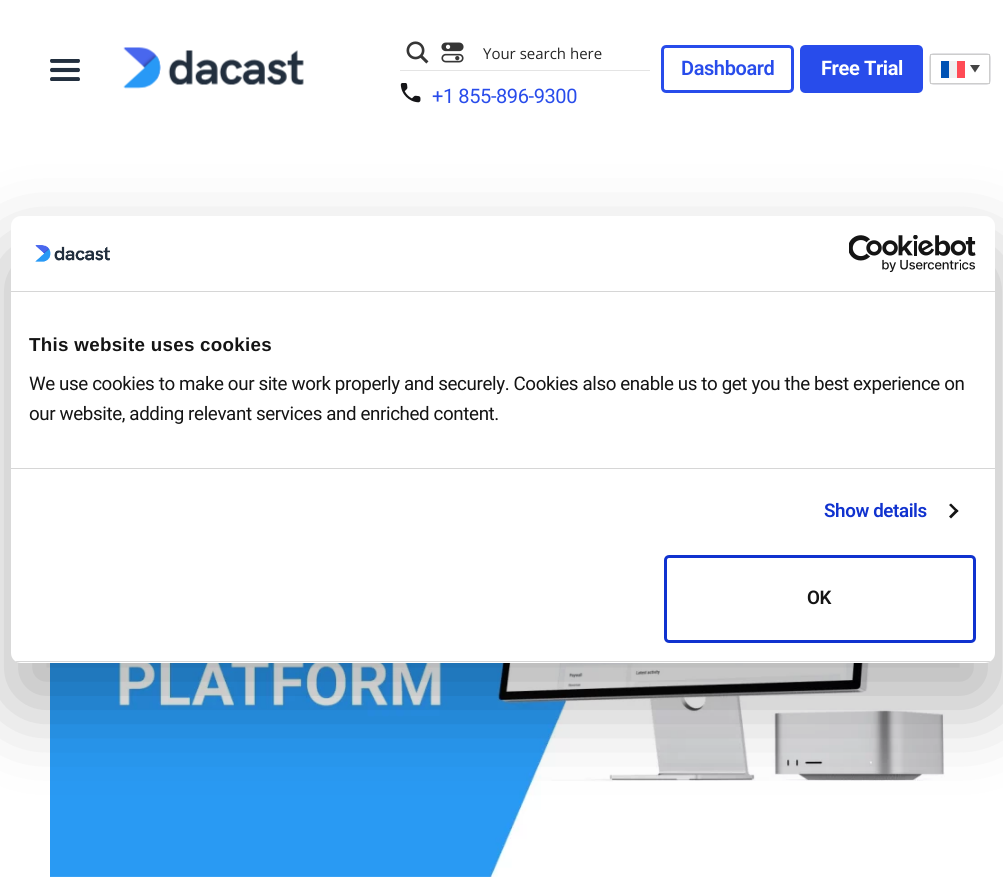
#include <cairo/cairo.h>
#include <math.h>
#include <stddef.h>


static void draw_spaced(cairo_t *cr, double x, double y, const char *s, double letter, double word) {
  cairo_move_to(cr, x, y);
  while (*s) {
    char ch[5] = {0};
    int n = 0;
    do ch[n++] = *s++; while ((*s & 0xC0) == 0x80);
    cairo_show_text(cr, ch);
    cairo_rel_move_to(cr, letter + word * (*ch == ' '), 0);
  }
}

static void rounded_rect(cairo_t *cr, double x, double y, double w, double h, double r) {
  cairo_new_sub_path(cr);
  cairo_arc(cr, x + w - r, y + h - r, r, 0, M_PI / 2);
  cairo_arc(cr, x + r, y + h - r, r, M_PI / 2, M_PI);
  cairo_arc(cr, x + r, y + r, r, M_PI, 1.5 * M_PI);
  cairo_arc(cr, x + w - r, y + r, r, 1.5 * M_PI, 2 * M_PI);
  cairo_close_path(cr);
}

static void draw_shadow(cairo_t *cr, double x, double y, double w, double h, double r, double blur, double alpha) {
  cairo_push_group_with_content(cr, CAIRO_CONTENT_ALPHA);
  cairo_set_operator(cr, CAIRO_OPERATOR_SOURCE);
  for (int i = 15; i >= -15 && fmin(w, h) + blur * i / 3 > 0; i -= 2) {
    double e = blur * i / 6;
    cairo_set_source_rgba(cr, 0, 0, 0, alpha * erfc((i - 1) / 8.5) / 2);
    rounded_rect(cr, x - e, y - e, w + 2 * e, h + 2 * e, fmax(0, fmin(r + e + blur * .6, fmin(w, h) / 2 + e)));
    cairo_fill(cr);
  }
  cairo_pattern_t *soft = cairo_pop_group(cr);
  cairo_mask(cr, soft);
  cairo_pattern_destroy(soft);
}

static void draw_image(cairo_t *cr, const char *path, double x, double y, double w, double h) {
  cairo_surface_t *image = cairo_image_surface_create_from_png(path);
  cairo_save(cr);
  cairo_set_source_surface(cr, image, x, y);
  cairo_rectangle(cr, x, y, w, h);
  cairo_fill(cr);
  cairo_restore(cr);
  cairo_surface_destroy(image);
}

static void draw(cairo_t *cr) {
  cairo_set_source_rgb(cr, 1, 1, 1);
  cairo_paint(cr);
  draw_image(cr, "images/1.png", 50, 59, 30, 22);
  draw_image(cr, "images/2.png", 123, 47, 181, 42);
  cairo_set_source_rgb(cr, 228 / 255.0, 228 / 255.0, 228 / 255.0);
  cairo_rectangle(cr, 400, 70, 250, 1);
  cairo_fill(cr);
  draw_image(cr, "images/3.png", 406, 41, 23, 23);
  draw_image(cr, "images/4.png", 441, 42, 23, 21);
  draw_image(cr, "images/5.png", 400, 83, 21, 20);
  rounded_rect(cr, 662.5, 46.5, 130, 45, 3.5);
  cairo_set_source_rgb(cr, 40 / 255.0, 76 / 255.0, 235 / 255.0);
  cairo_set_line_width(cr, 3);
  cairo_stroke(cr);
  rounded_rect(cr, 801.5, 46.5, 120, 45, 3.5);
  cairo_fill_preserve(cr);
  cairo_stroke(cr);
  rounded_rect(cr, 929.5, 53.5, 61, 31, 4.5);
  cairo_set_source_rgb(cr, 226 / 255.0, 226 / 255.0, 229 / 255.0);
  cairo_set_line_width(cr, 1);
  cairo_stroke(cr);
  cairo_rectangle(cr, 930.5, 54.5, 59, 29);
  cairo_set_source_rgb(cr, 205 / 255.0, 205 / 255.0, 205 / 255.0);
  cairo_stroke(cr);
  cairo_set_source_rgb(cr, 0, 82 / 255.0, 180 / 255.0);
  cairo_rectangle(cr, 941, 61, 8, 17);
  cairo_fill(cr);
  cairo_set_source_rgb(cr, 240 / 255.0, 240 / 255.0, 240 / 255.0);
  cairo_rectangle(cr, 949, 61, 8, 17);
  cairo_fill(cr);
  cairo_set_source_rgb(cr, 1, 75 / 255.0, 85 / 255.0);
  cairo_rectangle(cr, 957, 61, 8, 17);
  cairo_fill(cr);
  cairo_set_source_rgb(cr, 68 / 255.0, 68 / 255.0, 68 / 255.0);
  cairo_new_path(cr);
  cairo_move_to(cr, 970, 65);
  cairo_line_to(cr, 980, 65);
  cairo_line_to(cr, 975, 72.5);
  cairo_close_path(cr);
  cairo_fill(cr);
  draw_image(cr, "images/6.png", 50, 663, 895, 214);
  cairo_set_source_rgb(cr, 0, 0, 0);
  draw_shadow(cr, 11, 256, 984, 447, 10, 42.5, 0.3);
  cairo_set_source_rgb(cr, 1, 1, 1);
  rounded_rect(cr, 11, 216, 984, 447, 10);
  cairo_fill(cr);
  cairo_set_source_rgb(cr, 214 / 255.0, 214 / 255.0, 214 / 255.0);
  cairo_rectangle(cr, 11, 291, 984, 1);
  cairo_fill(cr);
  draw_image(cr, "images/7.png", 35, 245, 75, 17);
  draw_image(cr, "images/8.png", 849, 235, 127, 38);
  cairo_rectangle(cr, 11, 468, 984, 1);
  cairo_fill(cr);
  cairo_set_source_rgb(cr, 20 / 255.0, 20 / 255.0, 20 / 255.0);
  cairo_new_path(cr);
  cairo_move_to(cr, 951, 503.5);
  cairo_line_to(cr, 958.5, 511);
  cairo_line_to(cr, 956.5, 512.5);
  cairo_line_to(cr, 949, 505);
  cairo_close_path(cr);
  cairo_fill(cr);
  cairo_new_path(cr);
  cairo_move_to(cr, 956.5, 509);
  cairo_line_to(cr, 958.5, 511);
  cairo_line_to(cr, 951, 518.5);
  cairo_line_to(cr, 949, 516.5);
  cairo_close_path(cr);
  cairo_fill(cr);
  cairo_save(cr);
  rounded_rect(cr, 11, 216, 984, 447, 10);
  cairo_clip(cr);
  cairo_set_source_rgb(cr, 214 / 255.0, 214 / 255.0, 214 / 255.0);
  cairo_rectangle(cr, 11, 661, 984, 1);
  cairo_fill(cr);
  cairo_restore(cr);
  rounded_rect(cr, 665.5, 556.5, 309, 85, 3.5);
  cairo_set_source_rgb(cr, 16 / 255.0, 50 / 255.0, 207 / 255.0);
  cairo_set_line_width(cr, 3);
  cairo_stroke(cr);
  cairo_select_font_face(cr, "Open Sans", CAIRO_FONT_SLANT_NORMAL, CAIRO_FONT_WEIGHT_NORMAL);
  cairo_set_font_size(cr, 15);
  cairo_set_source_rgb(cr, 38 / 255.0, 38 / 255.0, 38 / 255.0);
  cairo_move_to(cr, 483, 59);
  cairo_show_text(cr, "Your search here");
  cairo_select_font_face(cr, "Roboto", CAIRO_FONT_SLANT_NORMAL, CAIRO_FONT_WEIGHT_NORMAL);
  cairo_set_font_size(cr, 20);
  cairo_set_source_rgb(cr, 40 / 255.0, 76 / 255.0, 235 / 255.0);
  draw_spaced(cr, 432, 103, "+1 855-896-9300", -0.4, 0);
  cairo_select_font_face(cr, "Roboto SemiBold", CAIRO_FONT_SLANT_NORMAL, CAIRO_FONT_WEIGHT_NORMAL);
  draw_spaced(cr, 681, 75, "Dashboard", -0.4, 0);
  cairo_select_font_face(cr, "Roboto", CAIRO_FONT_SLANT_NORMAL, CAIRO_FONT_WEIGHT_BOLD);
  cairo_set_source_rgb(cr, 1, 1, 1);
  draw_spaced(cr, 821, 75, "Free Trial", -0.4, 0);
  cairo_select_font_face(cr, "Liberation Sans", CAIRO_FONT_SLANT_NORMAL, CAIRO_FONT_WEIGHT_BOLD);
  cairo_set_font_size(cr, 18.75);
  cairo_set_source_rgb(cr, 20 / 255.0, 20 / 255.0, 20 / 255.0);
  draw_spaced(cr, 29, 351, "This website uses cookies", 0.3, 0);
  cairo_select_font_face(cr, "Roboto", CAIRO_FONT_SLANT_NORMAL, CAIRO_FONT_WEIGHT_NORMAL);
  draw_spaced(cr, 29, 390, "We use cookies to make our site work properly and securely. Cookies also enable us to get you the best experience on", -0.38, 0);
  draw_spaced(cr, 29, 420, "our website, adding relevant services and enriched content.", -0.38, 0);
  cairo_select_font_face(cr, "Roboto SemiBold", CAIRO_FONT_SLANT_NORMAL, CAIRO_FONT_WEIGHT_NORMAL);
  cairo_set_source_rgb(cr, 16 / 255.0, 50 / 255.0, 207 / 255.0);
  draw_spaced(cr, 824, 517, "Show details", -0.38, 0);
  cairo_set_source_rgb(cr, 20 / 255.0, 20 / 255.0, 20 / 255.0);
  draw_spaced(cr, 807, 604, "OK", -0.38, 0);
}

int main(void) {
  cairo_surface_t *surface = cairo_image_surface_create(CAIRO_FORMAT_RGB24, 1003, 877);
  cairo_t *cr = cairo_create(surface);
  cairo_font_options_t *options = cairo_font_options_create();
  cairo_font_options_set_hint_metrics(options, CAIRO_HINT_METRICS_OFF);
  cairo_font_options_set_hint_style(options, CAIRO_HINT_STYLE_NONE);
  cairo_set_font_options(cr, options);
  cairo_set_miter_limit(cr, 4);
  draw(cr);
  cairo_surface_write_to_png(surface, "out.png");
  cairo_font_options_destroy(options);
  cairo_destroy(cr);
  cairo_surface_destroy(surface);
  return 0;
}
